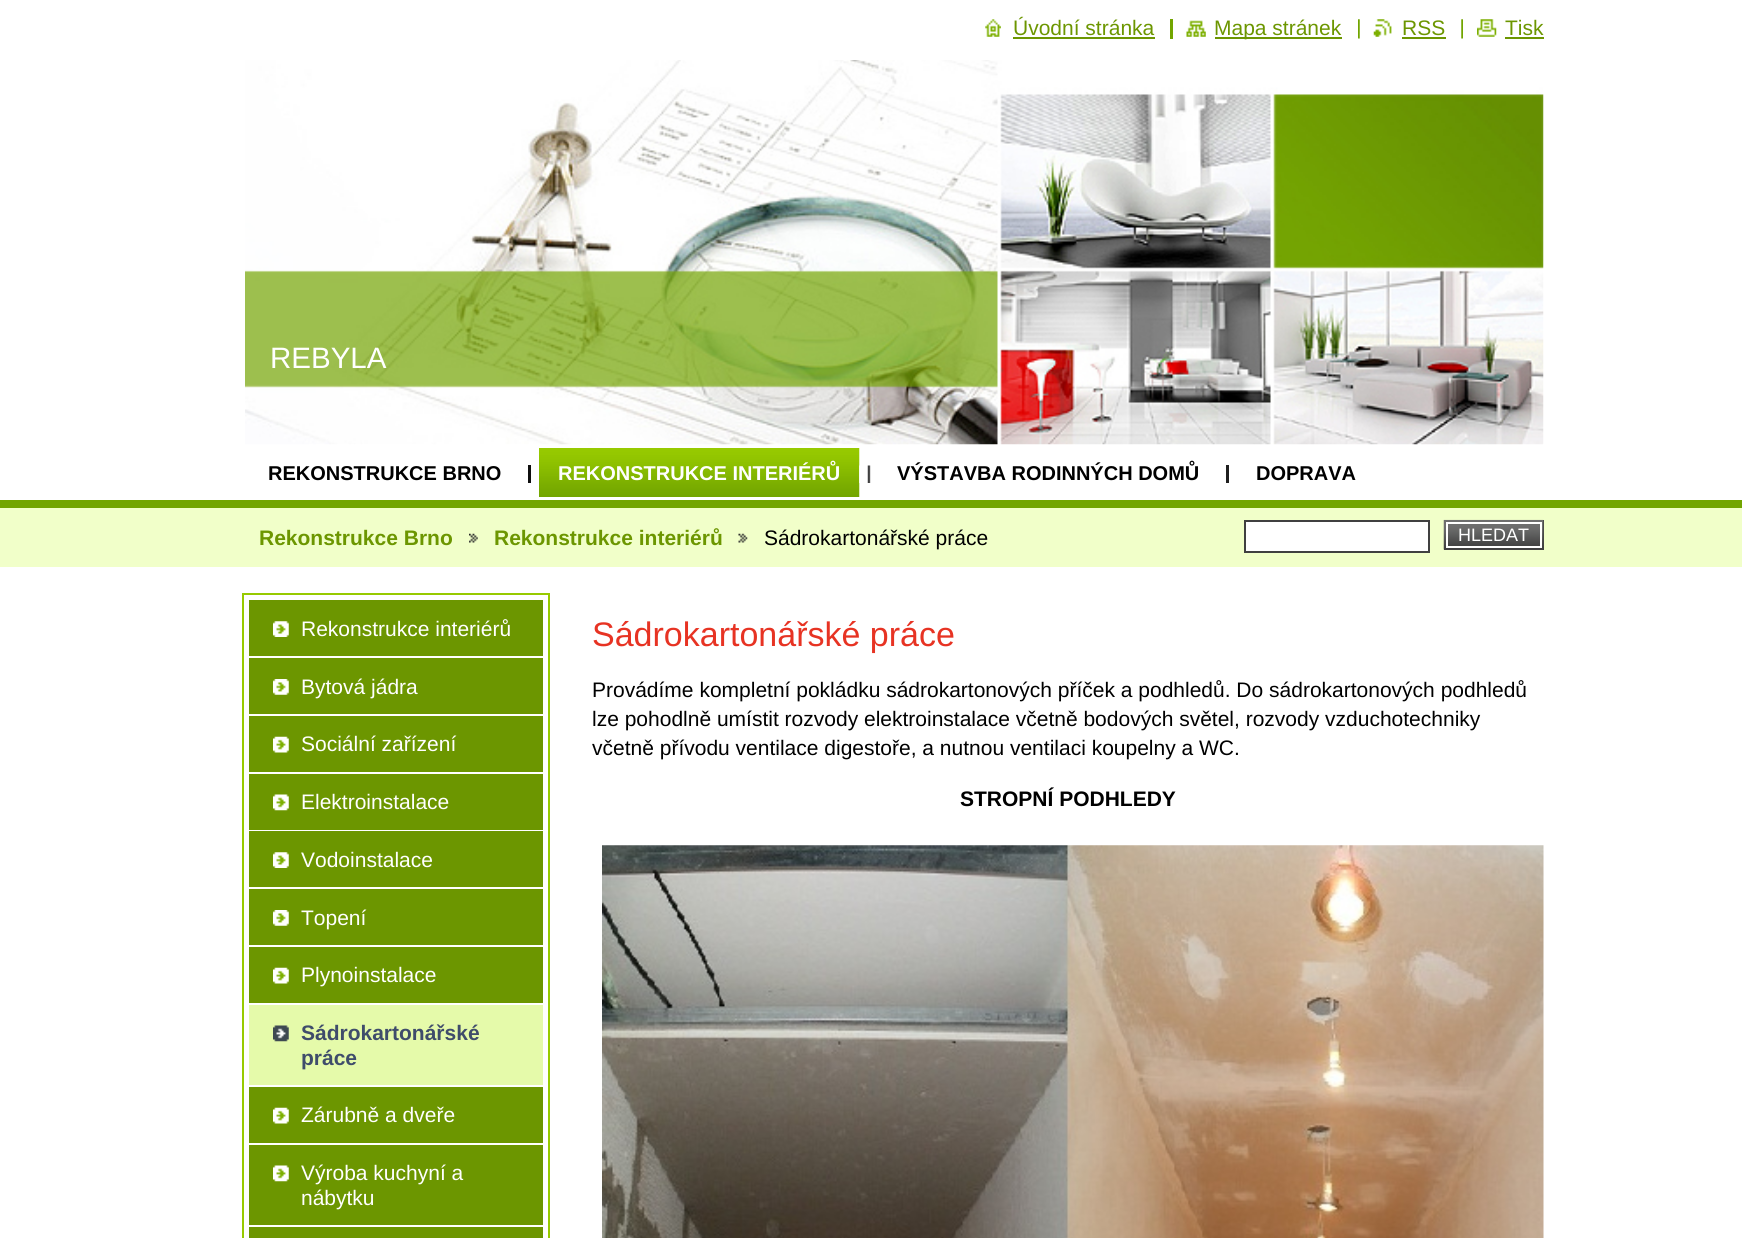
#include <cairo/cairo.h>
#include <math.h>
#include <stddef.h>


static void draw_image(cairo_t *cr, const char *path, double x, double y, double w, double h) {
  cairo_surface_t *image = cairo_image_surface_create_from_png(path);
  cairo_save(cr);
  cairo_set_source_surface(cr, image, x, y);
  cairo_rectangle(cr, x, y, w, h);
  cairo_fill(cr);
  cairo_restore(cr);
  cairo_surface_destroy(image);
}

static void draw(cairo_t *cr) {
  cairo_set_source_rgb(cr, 1, 1, 1);
  cairo_paint(cr);
  draw_image(cr, "images/1.png", 985, 19, 16, 18);
  cairo_set_source_rgb(cr, 108 / 255.0, 150 / 255.0, 0);
  cairo_rectangle(cr, 1013, 37, 142, 2);
  cairo_fill(cr);
  draw_image(cr, "images/2.png", 1186, 20, 20, 17);
  cairo_set_source_rgb(cr, 114 / 255.0, 165 / 255.0, 0);
  cairo_rectangle(cr, 1170, 19, 3, 20);
  cairo_fill(cr);
  cairo_set_source_rgb(cr, 108 / 255.0, 150 / 255.0, 0);
  cairo_rectangle(cr, 1215, 37, 127, 2);
  cairo_fill(cr);
  draw_image(cr, "images/3.png", 1358, 19, 2, 20);
  draw_image(cr, "images/4.png", 1373, 19, 19, 18);
  cairo_rectangle(cr, 1402, 37, 44, 2);
  cairo_fill(cr);
  draw_image(cr, "images/5.png", 1461, 19, 2, 20);
  draw_image(cr, "images/6.png", 1477, 19, 20, 18);
  cairo_rectangle(cr, 1505, 37, 39, 2);
  cairo_fill(cr);
  draw_image(cr, "images/7.png", 245, 60, 1299, 385);
  cairo_set_source_rgb(cr, 15 / 255.0, 15 / 255.0, 15 / 255.0);
  cairo_rectangle(cr, 528, 465, 3, 18);
  cairo_fill(cr);
  draw_image(cr, "images/8.png", 539, 448, 321, 49);
  draw_image(cr, "images/9.png", 859, 465, 12, 18);
  cairo_set_source_rgb(cr, 31 / 255.0, 31 / 255.0, 31 / 255.0);
  cairo_rectangle(cr, 1226, 465, 3, 18);
  cairo_fill(cr);
  cairo_set_source_rgb(cr, 241 / 255.0, 1, 201 / 255.0);
  cairo_rectangle(cr, 0, 508, 1742, 59);
  cairo_fill(cr);
  cairo_set_source_rgb(cr, 114 / 255.0, 165 / 255.0, 0);
  cairo_rectangle(cr, 0, 500, 1742, 8);
  cairo_fill(cr);
  draw_image(cr, "images/10.png", 469, 533, 9, 10);
  draw_image(cr, "images/11.png", 738, 533, 10, 10);
  cairo_set_source_rgb(cr, 1, 1, 1);
  cairo_rectangle(cr, 1245, 521, 184, 31);
  cairo_fill_preserve(cr);
  cairo_set_source_rgb(cr, 64 / 255.0, 64 / 255.0, 64 / 255.0);
  cairo_stroke(cr);
  cairo_rectangle(cr, 1444, 520, 100, 30);
  cairo_fill(cr);
  draw_image(cr, "images/12.png", 1443, 519, 101, 31);
  draw_image(cr, "images/13.png", 1448, 524, 92, 22);
  cairo_rectangle(cr, 1447, 523, 94, 24);
  cairo_set_source_rgb(cr, 1, 1, 1);
  cairo_stroke(cr);
  cairo_rectangle(cr, 243, 594, 306, 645);
  cairo_set_source_rgb(cr, 151 / 255.0, 202 / 255.0, 0);
  cairo_stroke(cr);
  cairo_set_source_rgb(cr, 108 / 255.0, 150 / 255.0, 0);
  cairo_rectangle(cr, 249, 600, 294, 56);
  cairo_fill(cr);
  draw_image(cr, "images/14.png", 273, 621, 16, 16);
  cairo_rectangle(cr, 249, 658, 294, 56);
  cairo_fill(cr);
  draw_image(cr, "images/15.png", 273, 679, 16, 16);
  cairo_rectangle(cr, 249, 716, 294, 56);
  cairo_fill(cr);
  draw_image(cr, "images/16.png", 273, 736, 16, 17);
  cairo_rectangle(cr, 249, 774, 294, 56);
  cairo_fill(cr);
  draw_image(cr, "images/17.png", 273, 794, 16, 17);
  cairo_rectangle(cr, 249, 831, 294, 56);
  cairo_fill(cr);
  draw_image(cr, "images/14.png", 273, 852, 16, 16);
  cairo_rectangle(cr, 249, 889, 294, 56);
  cairo_fill(cr);
  draw_image(cr, "images/15.png", 273, 910, 16, 16);
  cairo_rectangle(cr, 249, 947, 294, 56);
  cairo_fill(cr);
  draw_image(cr, "images/16.png", 273, 967, 16, 17);
  cairo_set_source_rgb(cr, 229 / 255.0, 250 / 255.0, 170 / 255.0);
  cairo_rectangle(cr, 249, 1005, 294, 80);
  cairo_fill(cr);
  draw_image(cr, "images/18.png", 273, 1025, 16, 17);
  cairo_set_source_rgb(cr, 108 / 255.0, 150 / 255.0, 0);
  cairo_rectangle(cr, 249, 1087, 294, 56);
  cairo_fill(cr);
  draw_image(cr, "images/16.png", 273, 1107, 16, 17);
  cairo_rectangle(cr, 249, 1145, 294, 80);
  cairo_fill(cr);
  draw_image(cr, "images/17.png", 273, 1165, 16, 17);
  cairo_rectangle(cr, 249, 1227, 294, 11);
  cairo_fill(cr);
  draw_image(cr, "images/19.png", 602, 845, 942, 393);
  cairo_select_font_face(cr, "Liberation Sans", CAIRO_FONT_SLANT_NORMAL, CAIRO_FONT_WEIGHT_NORMAL);
  cairo_set_font_size(cr, 21);
  cairo_move_to(cr, 1013, 35);
  cairo_show_text(cr, "Úvodní stránka");
  cairo_move_to(cr, 1214, 35);
  cairo_show_text(cr, "Mapa stránek");
  cairo_move_to(cr, 1402, 35);
  cairo_show_text(cr, "RSS");
  cairo_move_to(cr, 1505, 35);
  cairo_show_text(cr, "Tisk");
  cairo_set_font_size(cr, 29.5);
  cairo_set_source_rgb(cr, 1, 1, 1);
  cairo_move_to(cr, 270, 368);
  cairo_show_text(cr, "REBYLA");
  cairo_select_font_face(cr, "Liberation Sans", CAIRO_FONT_SLANT_NORMAL, CAIRO_FONT_WEIGHT_BOLD);
  cairo_set_font_size(cr, 20);
  cairo_set_source_rgb(cr, 0, 0, 0);
  cairo_move_to(cr, 268, 480);
  cairo_show_text(cr, "REKONSTRUKCE BRNO");
  cairo_set_source_rgb(cr, 1, 1, 1);
  cairo_move_to(cr, 558, 480);
  cairo_show_text(cr, "REKONSTRUKCE INTERIÉRŮ");
  cairo_set_source_rgb(cr, 0, 0, 0);
  cairo_move_to(cr, 897, 480);
  cairo_show_text(cr, "VÝSTAVBA RODINNÝCH DOMŮ");
  cairo_move_to(cr, 1256, 480);
  cairo_show_text(cr, "DOPRAVA");
  cairo_set_font_size(cr, 21);
  cairo_set_source_rgb(cr, 108 / 255.0, 150 / 255.0, 0);
  cairo_move_to(cr, 259, 545);
  cairo_show_text(cr, "Rekonstrukce Brno");
  cairo_move_to(cr, 494, 545);
  cairo_show_text(cr, "Rekonstrukce interiérů");
  cairo_select_font_face(cr, "Liberation Sans", CAIRO_FONT_SLANT_NORMAL, CAIRO_FONT_WEIGHT_NORMAL);
  cairo_set_source_rgb(cr, 0, 0, 0);
  cairo_move_to(cr, 764, 545);
  cairo_show_text(cr, "Sádrokartonářské práce");
  cairo_set_font_size(cr, 18);
  cairo_set_source_rgb(cr, 1, 1, 1);
  cairo_move_to(cr, 1458, 541);
  cairo_show_text(cr, "HLEDAT");
  cairo_set_font_size(cr, 21);
  cairo_move_to(cr, 301, 636);
  cairo_show_text(cr, "Rekonstrukce interiérů");
  cairo_move_to(cr, 301, 694);
  cairo_show_text(cr, "Bytová jádra");
  cairo_move_to(cr, 301, 751);
  cairo_show_text(cr, "Sociální zařízení");
  cairo_move_to(cr, 301, 809);
  cairo_show_text(cr, "Elektroinstalace");
  cairo_move_to(cr, 301, 867);
  cairo_show_text(cr, "Vodoinstalace");
  cairo_move_to(cr, 301, 925);
  cairo_show_text(cr, "Topení");
  cairo_move_to(cr, 301, 982);
  cairo_show_text(cr, "Plynoinstalace");
  cairo_select_font_face(cr, "Liberation Sans", CAIRO_FONT_SLANT_NORMAL, CAIRO_FONT_WEIGHT_BOLD);
  cairo_set_source_rgb(cr, 63 / 255.0, 76 / 255.0, 107 / 255.0);
  cairo_move_to(cr, 301, 1040);
  cairo_show_text(cr, "Sádrokartonářské");
  cairo_move_to(cr, 301, 1065);
  cairo_show_text(cr, "práce");
  cairo_select_font_face(cr, "Liberation Sans", CAIRO_FONT_SLANT_NORMAL, CAIRO_FONT_WEIGHT_NORMAL);
  cairo_set_source_rgb(cr, 1, 1, 1);
  cairo_move_to(cr, 301, 1122);
  cairo_show_text(cr, "Zárubně a dveře");
  cairo_move_to(cr, 301, 1180);
  cairo_show_text(cr, "Výroba kuchyní a");
  cairo_move_to(cr, 301, 1205);
  cairo_show_text(cr, "nábytku");
  cairo_set_font_size(cr, 34);
  cairo_set_source_rgb(cr, 231 / 255.0, 51 / 255.0, 35 / 255.0);
  cairo_move_to(cr, 592, 646);
  cairo_show_text(cr, "Sádrokartonářské práce");
  cairo_set_font_size(cr, 21);
  cairo_set_source_rgb(cr, 0, 0, 0);
  cairo_move_to(cr, 592, 697);
  cairo_show_text(cr, "Provádíme kompletní pokládku sádrokartonových příček a podhledů. Do sádrokartonových podhledů");
  cairo_move_to(cr, 592, 726);
  cairo_show_text(cr, "lze pohodlně umístit rozvody elektroinstalace včetně bodových světel, rozvody vzduchotechniky");
  cairo_move_to(cr, 592, 755);
  cairo_show_text(cr, "včetně přívodu ventilace digestoře, a nutnou ventilaci koupelny a WC.");
  cairo_select_font_face(cr, "Liberation Sans", CAIRO_FONT_SLANT_NORMAL, CAIRO_FONT_WEIGHT_BOLD);
  cairo_move_to(cr, 960, 806);
  cairo_show_text(cr, "STROPNÍ PODHLEDY");
}

int main(void) {
  cairo_surface_t *surface = cairo_image_surface_create(CAIRO_FORMAT_RGB24, 1742, 1238);
  cairo_t *cr = cairo_create(surface);
  cairo_font_options_t *options = cairo_font_options_create();
  cairo_font_options_set_hint_metrics(options, CAIRO_HINT_METRICS_OFF);
  cairo_font_options_set_hint_style(options, CAIRO_HINT_STYLE_NONE);
  cairo_set_font_options(cr, options);
  cairo_set_miter_limit(cr, 4);
  draw(cr);
  cairo_surface_write_to_png(surface, "out.png");
  cairo_font_options_destroy(options);
  cairo_destroy(cr);
  cairo_surface_destroy(surface);
  return 0;
}
